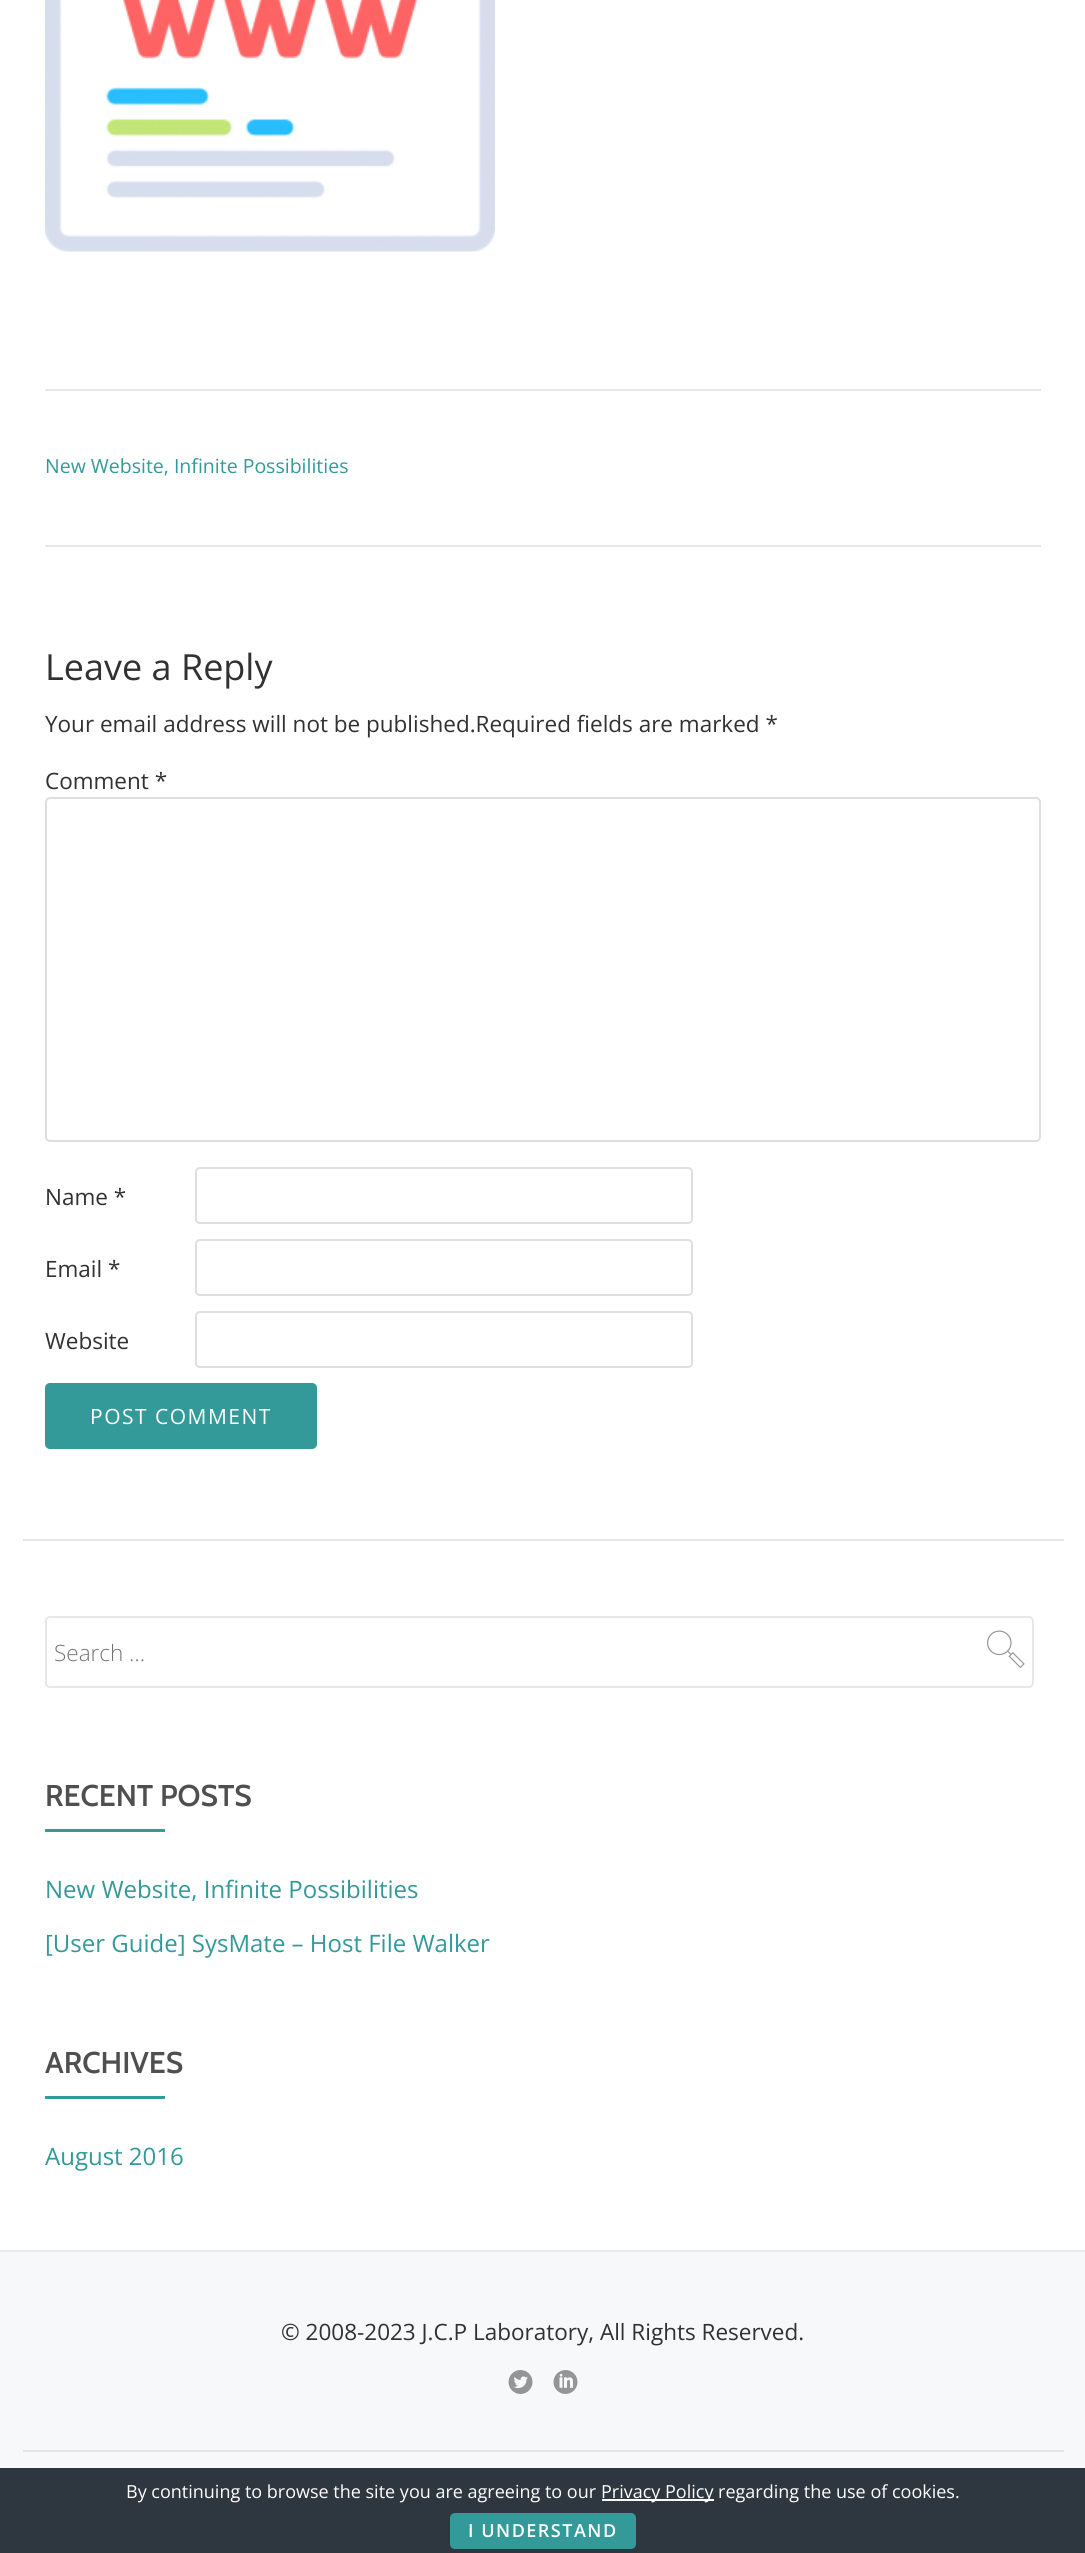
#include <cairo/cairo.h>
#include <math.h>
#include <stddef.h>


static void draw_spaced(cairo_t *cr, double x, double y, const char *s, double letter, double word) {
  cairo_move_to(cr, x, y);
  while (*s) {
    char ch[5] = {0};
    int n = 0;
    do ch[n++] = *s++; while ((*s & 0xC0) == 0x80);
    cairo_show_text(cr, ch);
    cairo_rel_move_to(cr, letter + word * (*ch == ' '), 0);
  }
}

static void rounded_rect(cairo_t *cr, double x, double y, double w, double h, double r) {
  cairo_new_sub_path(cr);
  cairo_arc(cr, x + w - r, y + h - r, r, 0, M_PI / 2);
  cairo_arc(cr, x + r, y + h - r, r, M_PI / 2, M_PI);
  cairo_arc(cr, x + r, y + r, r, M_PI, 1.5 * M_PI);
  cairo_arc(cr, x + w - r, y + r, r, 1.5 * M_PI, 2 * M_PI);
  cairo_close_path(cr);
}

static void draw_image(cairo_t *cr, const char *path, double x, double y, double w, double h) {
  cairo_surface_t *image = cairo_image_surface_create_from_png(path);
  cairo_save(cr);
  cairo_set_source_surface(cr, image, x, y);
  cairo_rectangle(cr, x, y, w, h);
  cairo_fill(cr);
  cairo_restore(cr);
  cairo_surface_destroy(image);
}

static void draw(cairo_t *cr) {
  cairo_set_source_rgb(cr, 1, 1, 1);
  cairo_paint(cr);
  draw_image(cr, "images/1.png", 45, 0, 450, 252);
  cairo_set_source_rgb(cr, 231 / 255.0, 231 / 255.0, 231 / 255.0);
  cairo_rectangle(cr, 45, 389, 996, 2);
  cairo_fill(cr);
  cairo_rectangle(cr, 45, 545, 996, 2);
  cairo_fill(cr);
  rounded_rect(cr, 46, 798, 994, 343, 4);
  cairo_set_source_rgb(cr, 222 / 255.0, 222 / 255.0, 222 / 255.0);
  cairo_stroke(cr);
  rounded_rect(cr, 196, 1168, 496, 55, 4);
  cairo_stroke(cr);
  rounded_rect(cr, 196, 1240, 496, 55, 4);
  cairo_stroke(cr);
  rounded_rect(cr, 196, 1312, 496, 55, 4);
  cairo_stroke(cr);
  cairo_set_source_rgb(cr, 51 / 255.0, 153 / 255.0, 153 / 255.0);
  rounded_rect(cr, 45, 1383, 272, 66, 5);
  cairo_fill(cr);
  cairo_set_source_rgb(cr, 231 / 255.0, 231 / 255.0, 231 / 255.0);
  cairo_rectangle(cr, 23, 1539, 1041, 2);
  cairo_fill(cr);
  rounded_rect(cr, 46, 1617, 987, 70, 4);
  cairo_stroke(cr);
  draw_image(cr, "images/2.png", 987, 1630, 38, 39);
  cairo_set_source_rgb(cr, 51 / 255.0, 153 / 255.0, 153 / 255.0);
  cairo_rectangle(cr, 45, 1829, 120, 3);
  cairo_fill(cr);
  cairo_rectangle(cr, 45, 2096, 120, 3);
  cairo_fill(cr);
  cairo_set_source_rgb(cr, 247 / 255.0, 248 / 255.0, 250 / 255.0);
  cairo_rectangle(cr, 0, 2252, 1085, 216);
  cairo_fill(cr);
  cairo_set_source_rgb(cr, 234 / 255.0, 235 / 255.0, 236 / 255.0);
  cairo_rectangle(cr, 0, 2250, 1085, 2);
  cairo_fill(cr);
  draw_image(cr, "images/3.png", 508, 2370, 25, 24);
  draw_image(cr, "images/4.png", 553, 2370, 25, 24);
  cairo_set_source_rgb(cr, 228 / 255.0, 231 / 255.0, 231 / 255.0);
  cairo_rectangle(cr, 23, 2450, 1041, 2);
  cairo_fill(cr);
  cairo_set_source_rgb(cr, 46 / 255.0, 54 / 255.0, 63 / 255.0);
  cairo_rectangle(cr, 0, 2468, 1085, 85);
  cairo_fill(cr);
  cairo_set_source_rgb(cr, 1, 1, 1);
  cairo_rectangle(cr, 602, 2499, 112, 2);
  cairo_fill(cr);
  cairo_set_source_rgb(cr, 51 / 255.0, 153 / 255.0, 153 / 255.0);
  rounded_rect(cr, 450, 2513, 186, 36, 5);
  cairo_fill(cr);
  cairo_select_font_face(cr, "Open Sans", CAIRO_FONT_SLANT_NORMAL, CAIRO_FONT_WEIGHT_NORMAL);
  cairo_set_font_size(cr, 19.5);
  cairo_move_to(cr, 45, 473);
  cairo_show_text(cr, "New Website, Infinite Possibilities");
  cairo_set_font_size(cr, 36);
  cairo_set_source_rgb(cr, 49 / 255.0, 49 / 255.0, 49 / 255.0);
  cairo_move_to(cr, 45, 680);
  cairo_show_text(cr, "Leave a Reply");
  cairo_set_font_size(cr, 22.5);
  cairo_move_to(cr, 45, 732);
  cairo_show_text(cr, "Your email address will not be published.Required fields are marked *");
  cairo_move_to(cr, 45, 789);
  cairo_show_text(cr, "Comment *");
  cairo_move_to(cr, 45, 1205);
  cairo_show_text(cr, "Name *");
  cairo_move_to(cr, 45, 1277);
  cairo_show_text(cr, "Email *");
  cairo_move_to(cr, 45, 1349);
  cairo_show_text(cr, "Website");
  cairo_set_font_size(cr, 21);
  cairo_set_source_rgb(cr, 1, 1, 1);
  draw_spaced(cr, 90, 1424, "POST COMMENT", 1.5, 0);
  cairo_select_font_face(cr, "Open Sans Light", CAIRO_FONT_SLANT_NORMAL, CAIRO_FONT_WEIGHT_NORMAL);
  cairo_set_font_size(cr, 22.5);
  cairo_set_source_rgb(cr, 117 / 255.0, 117 / 255.0, 117 / 255.0);
  cairo_move_to(cr, 54, 1661);
  cairo_show_text(cr, "Search …");
  cairo_select_font_face(cr, "Cabin SemiBold", CAIRO_FONT_SLANT_NORMAL, CAIRO_FONT_WEIGHT_NORMAL);
  cairo_set_font_size(cr, 30);
  cairo_set_source_rgb(cr, 79 / 255.0, 79 / 255.0, 79 / 255.0);
  cairo_move_to(cr, 45, 1806);
  cairo_show_text(cr, "RECENT POSTS");
  cairo_select_font_face(cr, "Open Sans", CAIRO_FONT_SLANT_NORMAL, CAIRO_FONT_WEIGHT_NORMAL);
  cairo_set_font_size(cr, 24);
  cairo_set_source_rgb(cr, 51 / 255.0, 153 / 255.0, 153 / 255.0);
  cairo_move_to(cr, 45, 1898);
  cairo_show_text(cr, "New Website, Infinite Possibilities");
  cairo_move_to(cr, 45, 1952);
  cairo_show_text(cr, "[User Guide] SysMate – Host File Walker");
  cairo_select_font_face(cr, "Cabin SemiBold", CAIRO_FONT_SLANT_NORMAL, CAIRO_FONT_WEIGHT_NORMAL);
  cairo_set_font_size(cr, 30);
  cairo_set_source_rgb(cr, 79 / 255.0, 79 / 255.0, 79 / 255.0);
  cairo_move_to(cr, 45, 2073);
  cairo_show_text(cr, "ARCHIVES");
  cairo_select_font_face(cr, "Open Sans", CAIRO_FONT_SLANT_NORMAL, CAIRO_FONT_WEIGHT_NORMAL);
  cairo_set_font_size(cr, 24);
  cairo_set_source_rgb(cr, 51 / 255.0, 153 / 255.0, 153 / 255.0);
  cairo_move_to(cr, 45, 2165);
  cairo_show_text(cr, "August 2016");
  cairo_set_font_size(cr, 22.5);
  cairo_set_source_rgb(cr, 49 / 255.0, 49 / 255.0, 49 / 255.0);
  cairo_move_to(cr, 281, 2340);
  cairo_show_text(cr, "© 2008-2023 J.C.P Laboratory, All Rights Reserved.");
  cairo_set_font_size(cr, 18);
  cairo_set_source_rgb(cr, 1, 1, 1);
  cairo_move_to(cr, 126, 2498);
  cairo_show_text(cr, "By continuing to browse the site you are agreeing to our");
  cairo_move_to(cr, 601, 2498);
  cairo_show_text(cr, "Privacy Policy regarding the use of cookies.");
  cairo_select_font_face(cr, "Open Sans SemiBold", CAIRO_FONT_SLANT_NORMAL, CAIRO_FONT_WEIGHT_NORMAL);
  draw_spaced(cr, 468, 2537, "I UNDERSTAND", 1.5, 0);
}

int main(void) {
  cairo_surface_t *surface = cairo_image_surface_create(CAIRO_FORMAT_RGB24, 1085, 2553);
  cairo_t *cr = cairo_create(surface);
  cairo_font_options_t *options = cairo_font_options_create();
  cairo_font_options_set_hint_metrics(options, CAIRO_HINT_METRICS_OFF);
  cairo_font_options_set_hint_style(options, CAIRO_HINT_STYLE_NONE);
  cairo_set_font_options(cr, options);
  cairo_set_miter_limit(cr, 4);
  draw(cr);
  cairo_surface_write_to_png(surface, "out.png");
  cairo_font_options_destroy(options);
  cairo_destroy(cr);
  cairo_surface_destroy(surface);
  return 0;
}
